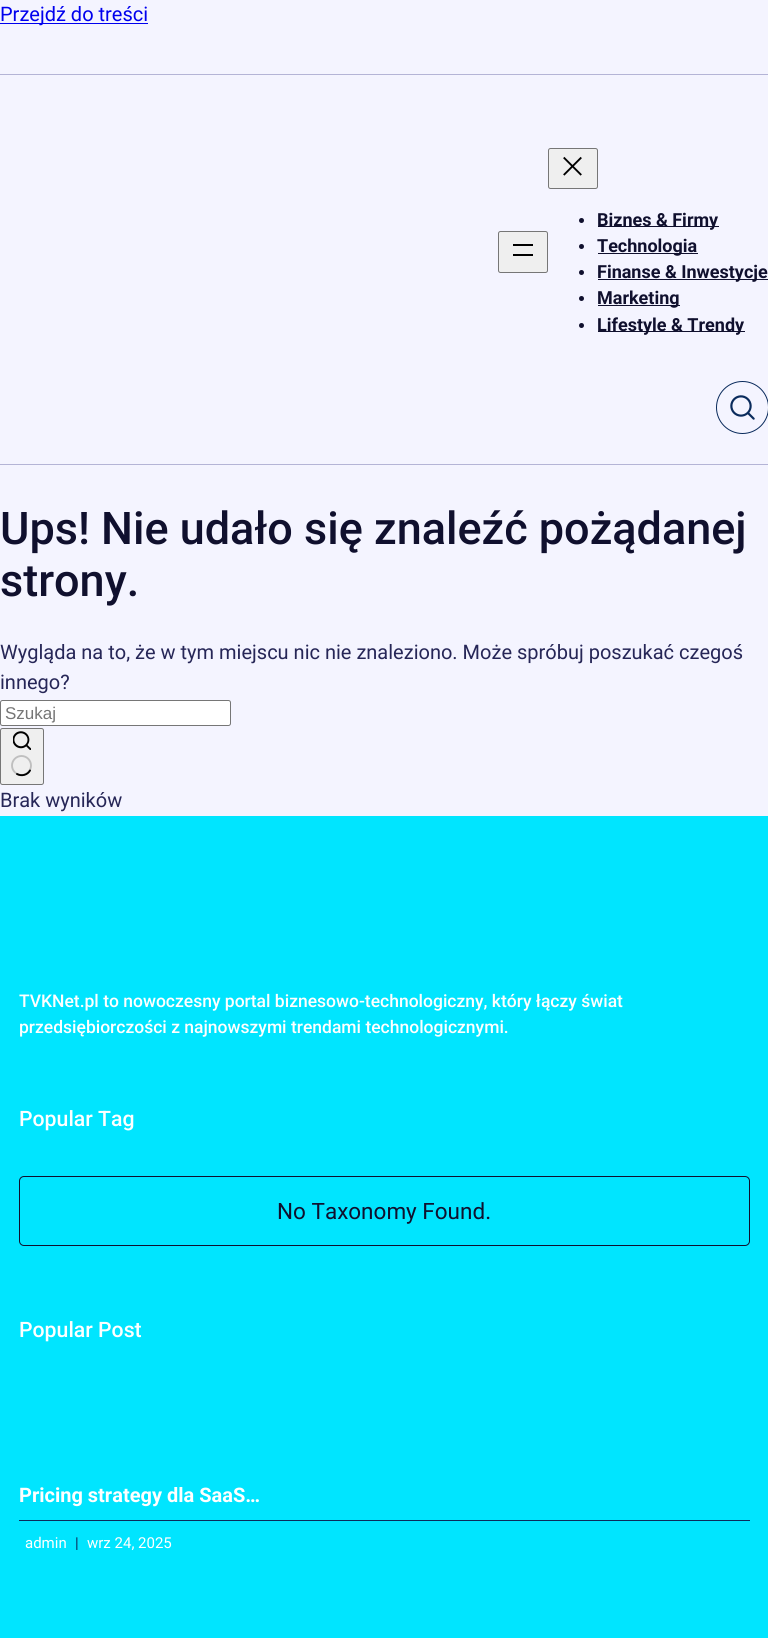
#include <cairo/cairo.h>
#include <math.h>
#include <stddef.h>


static void rounded_rect(cairo_t *cr, double x, double y, double w, double h, double r) {
  cairo_new_sub_path(cr);
  cairo_arc(cr, x + w - r, y + h - r, r, 0, M_PI / 2);
  cairo_arc(cr, x + r, y + h - r, r, M_PI / 2, M_PI);
  cairo_arc(cr, x + r, y + r, r, M_PI, 1.5 * M_PI);
  cairo_arc(cr, x + w - r, y + r, r, 1.5 * M_PI, 2 * M_PI);
  cairo_close_path(cr);
}

static void draw_image(cairo_t *cr, const char *path, double x, double y, double w, double h) {
  cairo_surface_t *image = cairo_image_surface_create_from_png(path);
  cairo_save(cr);
  cairo_set_source_surface(cr, image, x, y);
  cairo_rectangle(cr, x, y, w, h);
  cairo_fill(cr);
  cairo_restore(cr);
  cairo_surface_destroy(image);
}

static void draw(cairo_t *cr) {
  cairo_set_source_rgb(cr, 244 / 255.0, 244 / 255.0, 1);
  cairo_paint(cr);
  cairo_set_source_rgb(cr, 0, 0, 238 / 255.0);
  cairo_rectangle(cr, 0, 23, 148, 1);
  cairo_fill(cr);
  cairo_set_source_rgb(cr, 180 / 255.0, 180 / 255.0, 214 / 255.0);
  cairo_rectangle(cr, 0, 74, 768, 1);
  cairo_fill(cr);
  cairo_rectangle(cr, 0, 464, 768, 1);
  cairo_fill(cr);
  cairo_set_source_rgb(cr, 239 / 255.0, 239 / 255.0, 239 / 255.0);
  rounded_rect(cr, 498.5, 231.5, 49, 41, 2);
  cairo_fill_preserve(cr);
  cairo_set_source_rgb(cr, 118 / 255.0, 118 / 255.0, 118 / 255.0);
  cairo_set_line_width(cr, 1);
  cairo_stroke(cr);
  cairo_set_source_rgb(cr, 0, 0, 0);
  cairo_rectangle(cr, 513, 244, 20, 2);
  cairo_fill(cr);
  cairo_rectangle(cr, 513, 254, 20, 2);
  cairo_fill(cr);
  cairo_set_source_rgb(cr, 239 / 255.0, 239 / 255.0, 239 / 255.0);
  rounded_rect(cr, 548.5, 148.5, 49, 40, 2);
  cairo_fill_preserve(cr);
  cairo_set_source_rgb(cr, 118 / 255.0, 118 / 255.0, 118 / 255.0);
  cairo_stroke(cr);
  draw_image(cr, "images/1.png", 563, 156, 19, 20);
  cairo_set_source_rgb(cr, 16 / 255.0, 16 / 255.0, 46 / 255.0);
  cairo_arc(cr, 581.5, 220.5, 2.5, 0, 2 * M_PI);
  cairo_fill(cr);
  cairo_rectangle(cr, 598, 226, 121, 1);
  cairo_fill(cr);
  cairo_arc(cr, 581.5, 246.5, 2.5, 0, 2 * M_PI);
  cairo_fill(cr);
  cairo_rectangle(cr, 598, 253, 100, 1);
  cairo_fill(cr);
  cairo_arc(cr, 581.5, 272.5, 2.5, 0, 2 * M_PI);
  cairo_fill(cr);
  cairo_rectangle(cr, 598, 279, 170, 1);
  cairo_fill(cr);
  cairo_arc(cr, 581.5, 298.5, 2.5, 0, 2 * M_PI);
  cairo_fill(cr);
  cairo_rectangle(cr, 598, 305, 82, 1);
  cairo_fill(cr);
  cairo_arc(cr, 581.5, 325.5, 2.5, 0, 2 * M_PI);
  cairo_fill(cr);
  cairo_rectangle(cr, 598, 331, 147, 1);
  cairo_fill(cr);
  cairo_arc(cr, 742.5, 407.5, 26, 0, 2 * M_PI);
  cairo_set_source_rgb(cr, 10 / 255.0, 43 / 255.0, 92 / 255.0);
  cairo_stroke(cr);
  draw_image(cr, "images/2.png", 730, 395, 25, 25);
  cairo_set_source_rgb(cr, 1, 1, 1);
  rounded_rect(cr, 0.5, 700.5, 230, 25, 2);
  cairo_fill_preserve(cr);
  cairo_set_source_rgb(cr, 118 / 255.0, 118 / 255.0, 118 / 255.0);
  cairo_stroke(cr);
  cairo_set_source_rgb(cr, 239 / 255.0, 239 / 255.0, 239 / 255.0);
  rounded_rect(cr, 0.5, 728.5, 43, 56, 2);
  cairo_fill_preserve(cr);
  cairo_set_source_rgb(cr, 118 / 255.0, 118 / 255.0, 118 / 255.0);
  cairo_stroke(cr);
  draw_image(cr, "images/3.png", 13, 731, 18, 19);
  cairo_arc(cr, 21.5, 765.5, 9.5, 0, 2 * M_PI);
  cairo_set_source_rgb(cr, 191 / 255.0, 191 / 255.0, 191 / 255.0);
  cairo_set_line_width(cr, 1.9);
  cairo_stroke(cr);
  cairo_new_path(cr);
  cairo_move_to(cr, 30, 770.5);
  cairo_curve_to(cr, 27.5, 775, 21.5, 776.5, 17, 774);
  cairo_set_source_rgb(cr, 0, 0, 0);
  cairo_set_line_cap(cr, CAIRO_LINE_CAP_ROUND);
  cairo_stroke(cr);
  cairo_set_source_rgb(cr, 0, 229 / 255.0, 1);
  cairo_rectangle(cr, 0, 816, 768, 822);
  cairo_fill(cr);
  rounded_rect(cr, 19.5, 1176.5, 730, 69, 4.5);
  cairo_set_source_rgb(cr, 16 / 255.0, 16 / 255.0, 46 / 255.0);
  cairo_set_line_width(cr, 1);
  cairo_set_line_cap(cr, CAIRO_LINE_CAP_BUTT);
  cairo_stroke(cr);
  cairo_set_source_rgb(cr, 10 / 255.0, 43 / 255.0, 92 / 255.0);
  cairo_rectangle(cr, 19, 1520, 731, 1);
  cairo_fill(cr);
  cairo_select_font_face(cr, "Roboto", CAIRO_FONT_SLANT_NORMAL, CAIRO_FONT_WEIGHT_NORMAL);
  cairo_set_font_size(cr, 20);
  cairo_set_source_rgb(cr, 0, 0, 238 / 255.0);
  cairo_move_to(cr, 0, 21);
  cairo_show_text(cr, "Przejdź do treści");
  cairo_select_font_face(cr, "Roboto", CAIRO_FONT_SLANT_NORMAL, CAIRO_FONT_WEIGHT_BOLD);
  cairo_set_font_size(cr, 18);
  cairo_set_source_rgb(cr, 16 / 255.0, 16 / 255.0, 46 / 255.0);
  cairo_move_to(cr, 597, 226);
  cairo_show_text(cr, "Biznes & Firmy");
  cairo_move_to(cr, 597, 252);
  cairo_show_text(cr, "Technologia");
  cairo_move_to(cr, 597, 278);
  cairo_show_text(cr, "Finanse & Inwestycje");
  cairo_move_to(cr, 597, 304);
  cairo_show_text(cr, "Marketing");
  cairo_move_to(cr, 597, 331);
  cairo_show_text(cr, "Lifestyle & Trendy");
  cairo_select_font_face(cr, "Roboto Medium", CAIRO_FONT_SLANT_NORMAL, CAIRO_FONT_WEIGHT_NORMAL);
  cairo_set_font_size(cr, 45);
  cairo_move_to(cr, 0, 544);
  cairo_show_text(cr, "Ups! Nie udało się znaleźć pożądanej");
  cairo_move_to(cr, 0, 596);
  cairo_show_text(cr, "strony.");
  cairo_select_font_face(cr, "Roboto", CAIRO_FONT_SLANT_NORMAL, CAIRO_FONT_WEIGHT_NORMAL);
  cairo_set_font_size(cr, 20);
  cairo_set_source_rgb(cr, 38 / 255.0, 38 / 255.0, 87 / 255.0);
  cairo_move_to(cr, 0, 659);
  cairo_show_text(cr, "Wygląda na to, że w tym miejscu nic nie znaleziono. Może spróbuj poszukać czegoś");
  cairo_move_to(cr, 0, 689);
  cairo_show_text(cr, "innego?");
  cairo_select_font_face(cr, "Liberation Sans", CAIRO_FONT_SLANT_NORMAL, CAIRO_FONT_WEIGHT_NORMAL);
  cairo_set_font_size(cr, 17);
  cairo_set_source_rgb(cr, 117 / 255.0, 117 / 255.0, 117 / 255.0);
  cairo_move_to(cr, 5, 719);
  cairo_show_text(cr, "Szukaj");
  cairo_select_font_face(cr, "Roboto", CAIRO_FONT_SLANT_NORMAL, CAIRO_FONT_WEIGHT_NORMAL);
  cairo_set_font_size(cr, 20);
  cairo_set_source_rgb(cr, 38 / 255.0, 38 / 255.0, 87 / 255.0);
  cairo_move_to(cr, 0, 807);
  cairo_show_text(cr, "Brak wyników");
  cairo_select_font_face(cr, "Roboto Medium", CAIRO_FONT_SLANT_NORMAL, CAIRO_FONT_WEIGHT_NORMAL);
  cairo_set_font_size(cr, 17.5);
  cairo_set_source_rgb(cr, 1, 1, 1);
  cairo_move_to(cr, 19, 1007);
  cairo_show_text(cr, "TVKNet.pl to nowoczesny portal biznesowo-technologiczny, który łączy świat");
  cairo_move_to(cr, 19, 1033);
  cairo_show_text(cr, "przedsiębiorczości z najnowszymi trendami technologicznymi.");
  cairo_set_font_size(cr, 21.25);
  cairo_move_to(cr, 19, 1126);
  cairo_show_text(cr, "Popular Tag");
  cairo_select_font_face(cr, "Roboto", CAIRO_FONT_SLANT_NORMAL, CAIRO_FONT_WEIGHT_NORMAL);
  cairo_set_font_size(cr, 22.5);
  cairo_set_source_rgb(cr, 16 / 255.0, 16 / 255.0, 46 / 255.0);
  cairo_move_to(cr, 277, 1219);
  cairo_show_text(cr, "No Taxonomy Found.");
  cairo_select_font_face(cr, "Roboto Medium", CAIRO_FONT_SLANT_NORMAL, CAIRO_FONT_WEIGHT_NORMAL);
  cairo_set_font_size(cr, 21.25);
  cairo_set_source_rgb(cr, 1, 1, 1);
  cairo_move_to(cr, 19, 1337);
  cairo_show_text(cr, "Popular Post");
  cairo_select_font_face(cr, "Roboto", CAIRO_FONT_SLANT_NORMAL, CAIRO_FONT_WEIGHT_BOLD);
  cairo_set_font_size(cr, 20);
  cairo_move_to(cr, 19, 1502);
  cairo_show_text(cr, "Pricing strategy dla SaaS…");
  cairo_select_font_face(cr, "Roboto", CAIRO_FONT_SLANT_NORMAL, CAIRO_FONT_WEIGHT_NORMAL);
  cairo_set_font_size(cr, 15);
  cairo_move_to(cr, 25, 1548);
  cairo_show_text(cr, "admin");
  cairo_set_source_rgb(cr, 10 / 255.0, 43 / 255.0, 92 / 255.0);
  cairo_move_to(cr, 75, 1548);
  cairo_show_text(cr, "|");
  cairo_set_source_rgb(cr, 1, 1, 1);
  cairo_move_to(cr, 87, 1548);
  cairo_show_text(cr, "wrz 24, 2025");
}

int main(void) {
  cairo_surface_t *surface = cairo_image_surface_create(CAIRO_FORMAT_RGB24, 768, 1638);
  cairo_t *cr = cairo_create(surface);
  cairo_font_options_t *options = cairo_font_options_create();
  cairo_font_options_set_hint_metrics(options, CAIRO_HINT_METRICS_OFF);
  cairo_font_options_set_hint_style(options, CAIRO_HINT_STYLE_NONE);
  cairo_set_font_options(cr, options);
  cairo_set_miter_limit(cr, 4);
  draw(cr);
  cairo_surface_write_to_png(surface, "out.png");
  cairo_font_options_destroy(options);
  cairo_destroy(cr);
  cairo_surface_destroy(surface);
  return 0;
}
